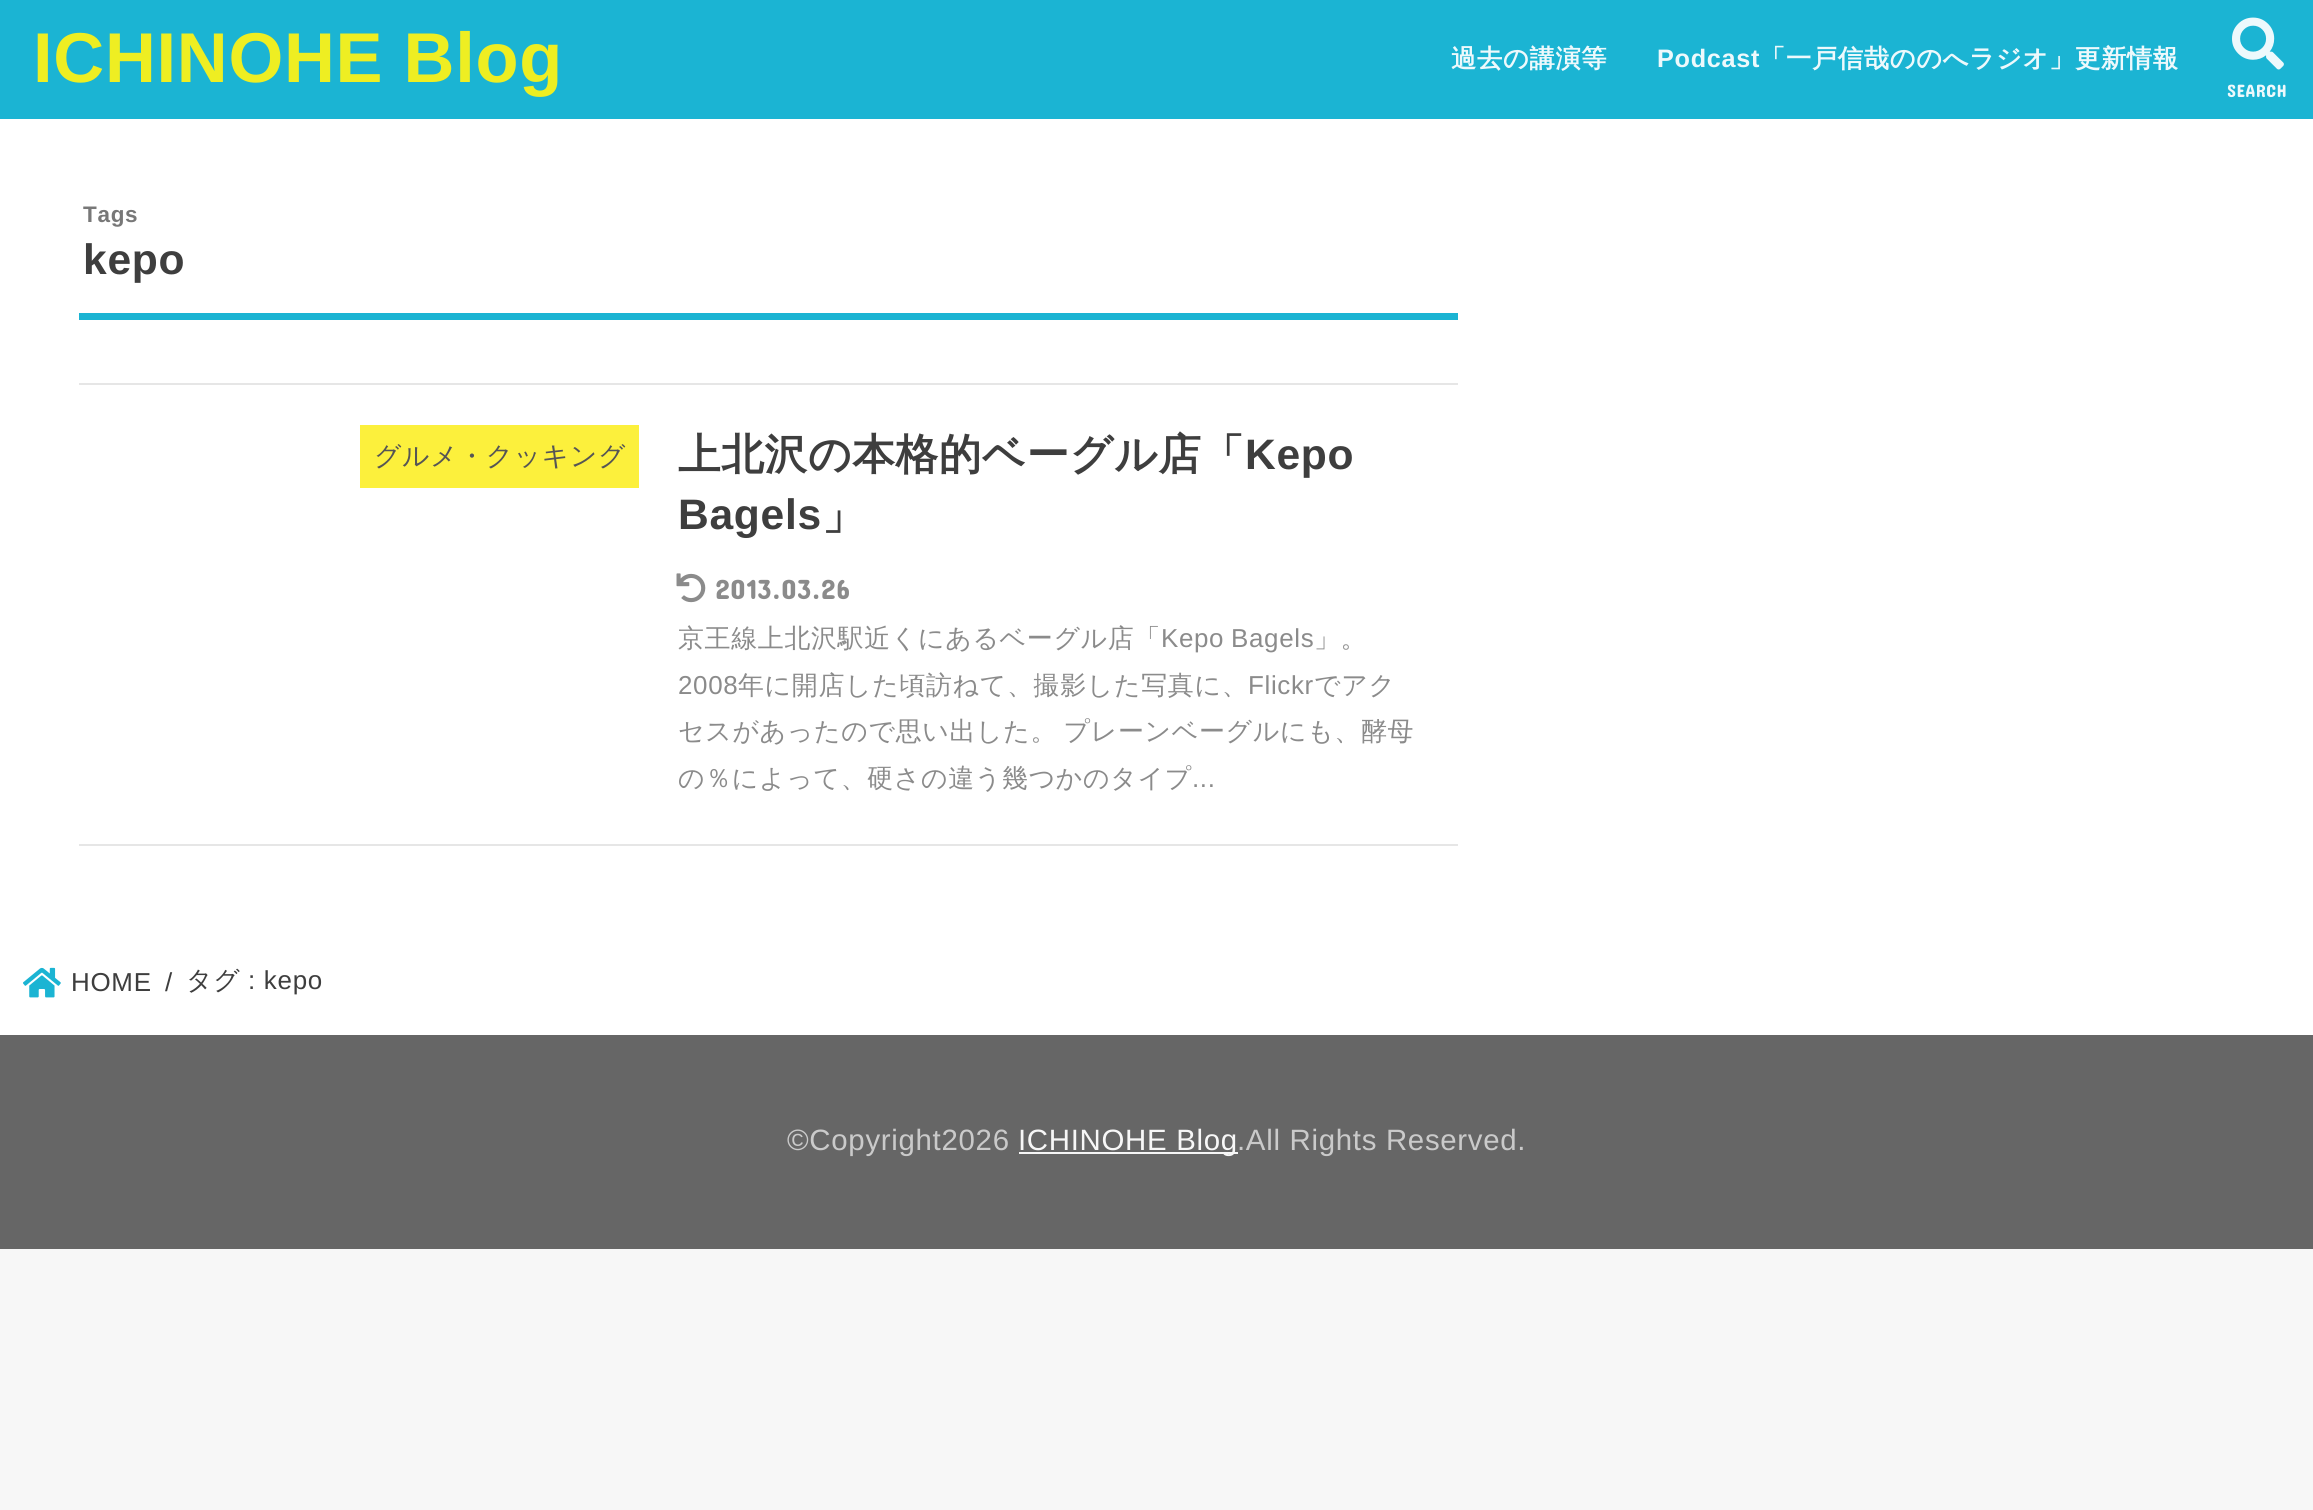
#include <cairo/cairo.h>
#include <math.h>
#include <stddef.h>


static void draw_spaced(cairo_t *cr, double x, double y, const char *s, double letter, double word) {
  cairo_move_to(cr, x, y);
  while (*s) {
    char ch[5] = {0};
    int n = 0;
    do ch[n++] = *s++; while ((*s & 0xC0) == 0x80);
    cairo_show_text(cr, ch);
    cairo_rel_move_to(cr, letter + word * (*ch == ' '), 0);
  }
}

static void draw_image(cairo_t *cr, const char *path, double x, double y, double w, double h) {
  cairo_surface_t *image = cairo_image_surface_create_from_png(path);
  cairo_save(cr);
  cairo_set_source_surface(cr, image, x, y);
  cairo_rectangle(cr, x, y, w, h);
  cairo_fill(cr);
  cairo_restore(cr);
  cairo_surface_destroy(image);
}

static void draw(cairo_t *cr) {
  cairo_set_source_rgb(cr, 247 / 255.0, 247 / 255.0, 247 / 255.0);
  cairo_paint(cr);
  cairo_set_source_rgb(cr, 27 / 255.0, 180 / 255.0, 211 / 255.0);
  cairo_rectangle(cr, 0, 0, 2313, 119);
  cairo_fill(cr);
  draw_image(cr, "images/1.png", 2232, 17, 52, 53);
  cairo_set_source_rgb(cr, 1, 1, 1);
  cairo_rectangle(cr, 0, 119, 2313, 916);
  cairo_fill(cr);
  cairo_set_source_rgb(cr, 27 / 255.0, 180 / 255.0, 211 / 255.0);
  cairo_rectangle(cr, 79, 313, 1379, 7);
  cairo_fill(cr);
  cairo_set_source_rgb(cr, 230 / 255.0, 230 / 255.0, 230 / 255.0);
  cairo_rectangle(cr, 79, 383, 1379, 2);
  cairo_fill(cr);
  cairo_rectangle(cr, 79, 844, 1379, 2);
  cairo_fill(cr);
  cairo_set_source_rgb(cr, 252 / 255.0, 240 / 255.0, 60 / 255.0);
  cairo_rectangle(cr, 360, 425, 279, 63);
  cairo_fill(cr);
  draw_image(cr, "images/2.png", 676, 573, 30, 30);
  draw_image(cr, "images/3.png", 23, 967, 38, 31);
  cairo_set_source_rgb(cr, 102 / 255.0, 102 / 255.0, 102 / 255.0);
  cairo_rectangle(cr, 0, 1035, 2313, 214);
  cairo_fill(cr);
  cairo_set_source_rgb(cr, 247 / 255.0, 247 / 255.0, 247 / 255.0);
  cairo_rectangle(cr, 1019, 1152, 219, 2);
  cairo_fill(cr);
  cairo_select_font_face(cr, "Liberation Sans", CAIRO_FONT_SLANT_NORMAL, CAIRO_FONT_WEIGHT_BOLD);
  cairo_set_font_size(cr, 70.5);
  cairo_set_source_rgb(cr, 238 / 255.0, 238 / 255.0, 34 / 255.0);
  draw_spaced(cr, 33, 82, "ICHINOHE Blog", 0.7, 0);
  cairo_select_font_face(cr, "WenQuanYi Zen Hei", CAIRO_FONT_SLANT_NORMAL, CAIRO_FONT_WEIGHT_BOLD);
  cairo_set_font_size(cr, 25.25);
  cairo_set_source_rgb(cr, 237 / 255.0, 249 / 255.0, 252 / 255.0);
  draw_spaced(cr, 1451, 67, "過去の講演等", 0.7, 0);
  cairo_select_font_face(cr, "Liberation Sans", CAIRO_FONT_SLANT_NORMAL, CAIRO_FONT_WEIGHT_BOLD);
  draw_spaced(cr, 1657, 67, "Podcast", 0.7, 0);
  cairo_select_font_face(cr, "WenQuanYi Zen Hei", CAIRO_FONT_SLANT_NORMAL, CAIRO_FONT_WEIGHT_BOLD);
  draw_spaced(cr, 1760, 67, "「一戸信哉ののへラジオ」更新情報", 0.7, 0);
  cairo_select_font_face(cr, "Concert One", CAIRO_FONT_SLANT_NORMAL, CAIRO_FONT_WEIGHT_NORMAL);
  cairo_set_font_size(cr, 18);
  draw_spaced(cr, 2227, 97, "SEARCH", 0.5, 0);
  cairo_select_font_face(cr, "Liberation Sans", CAIRO_FONT_SLANT_NORMAL, CAIRO_FONT_WEIGHT_BOLD);
  cairo_set_font_size(cr, 22.5);
  cairo_set_source_rgb(cr, 120 / 255.0, 120 / 255.0, 120 / 255.0);
  draw_spaced(cr, 83, 222, "Tags", 0.7, 0);
  cairo_set_font_size(cr, 42.6);
  cairo_set_source_rgb(cr, 62 / 255.0, 62 / 255.0, 62 / 255.0);
  draw_spaced(cr, 83, 274, "kepo", 0.7, 0);
  cairo_select_font_face(cr, "WenQuanYi Zen Hei Medium", CAIRO_FONT_SLANT_NORMAL, CAIRO_FONT_WEIGHT_NORMAL);
  cairo_set_font_size(cr, 26.75);
  cairo_set_source_rgb(cr, 85 / 255.0, 85 / 255.0, 85 / 255.0);
  draw_spaced(cr, 374, 465, "グルメ・クッキング", 0.7, 0);
  cairo_select_font_face(cr, "WenQuanYi Zen Hei", CAIRO_FONT_SLANT_NORMAL, CAIRO_FONT_WEIGHT_BOLD);
  cairo_set_font_size(cr, 42.6);
  cairo_set_source_rgb(cr, 62 / 255.0, 62 / 255.0, 62 / 255.0);
  draw_spaced(cr, 678, 469, "上北沢の本格的ベーグル店「", 0.7, 0);
  cairo_select_font_face(cr, "Liberation Sans", CAIRO_FONT_SLANT_NORMAL, CAIRO_FONT_WEIGHT_BOLD);
  draw_spaced(cr, 1245, 469, "Kepo", 0.7, 0);
  draw_spaced(cr, 678, 529, "Bagels", 0.7, 0);
  cairo_select_font_face(cr, "WenQuanYi Zen Hei", CAIRO_FONT_SLANT_NORMAL, CAIRO_FONT_WEIGHT_BOLD);
  draw_spaced(cr, 822, 529, "」", 0.7, 0);
  cairo_select_font_face(cr, "Concert One", CAIRO_FONT_SLANT_NORMAL, CAIRO_FONT_WEIGHT_NORMAL);
  cairo_set_font_size(cr, 28);
  cairo_set_source_rgb(cr, 139 / 255.0, 139 / 255.0, 139 / 255.0);
  draw_spaced(cr, 715, 599, "2013.03.26", 0.7, 0);
  cairo_select_font_face(cr, "WenQuanYi Zen Hei Medium", CAIRO_FONT_SLANT_NORMAL, CAIRO_FONT_WEIGHT_NORMAL);
  cairo_set_font_size(cr, 25.95);
  draw_spaced(cr, 678, 647, "京王線上北沢駅近くにあるベーグル店「", 0.65, 0);
  cairo_select_font_face(cr, "Liberation Sans", CAIRO_FONT_SLANT_NORMAL, CAIRO_FONT_WEIGHT_NORMAL);
  draw_spaced(cr, 1161, 647, "Kepo Bagels", 0.65, -1);
  cairo_select_font_face(cr, "WenQuanYi Zen Hei Medium", CAIRO_FONT_SLANT_NORMAL, CAIRO_FONT_WEIGHT_NORMAL);
  draw_spaced(cr, 1314, 647, "」。", 0.65, 0);
  cairo_select_font_face(cr, "Liberation Sans", CAIRO_FONT_SLANT_NORMAL, CAIRO_FONT_WEIGHT_NORMAL);
  draw_spaced(cr, 678, 694, "2008", 0.65, 0);
  cairo_select_font_face(cr, "WenQuanYi Zen Hei Medium", CAIRO_FONT_SLANT_NORMAL, CAIRO_FONT_WEIGHT_NORMAL);
  draw_spaced(cr, 738, 694, "年に開店した頃訪ねて、撮影した写真に、", 0.65, 0);
  cairo_select_font_face(cr, "Liberation Sans", CAIRO_FONT_SLANT_NORMAL, CAIRO_FONT_WEIGHT_NORMAL);
  draw_spaced(cr, 1248, 694, "Flickr", 0.65, 0);
  cairo_select_font_face(cr, "WenQuanYi Zen Hei Medium", CAIRO_FONT_SLANT_NORMAL, CAIRO_FONT_WEIGHT_NORMAL);
  draw_spaced(cr, 1314, 694, "でアク", 0.65, 0);
  draw_spaced(cr, 678, 740, "セスがあったので思い出した。 プレーンベーグルにも、酵母", 0.65, -2);
  draw_spaced(cr, 678, 787, "の％によって、硬さの違う幾つかのタイプ", 0.65, 0);
  cairo_select_font_face(cr, "Liberation Sans", CAIRO_FONT_SLANT_NORMAL, CAIRO_FONT_WEIGHT_NORMAL);
  draw_spaced(cr, 1192, 787, "...", 0.65, 0);
  cairo_set_source_rgb(cr, 62 / 255.0, 62 / 255.0, 62 / 255.0);
  draw_spaced(cr, 71, 991, "HOME", 0.7, 0);
  draw_spaced(cr, 165, 991, "/", 0.7, 0);
  cairo_select_font_face(cr, "WenQuanYi Zen Hei Medium", CAIRO_FONT_SLANT_NORMAL, CAIRO_FONT_WEIGHT_NORMAL);
  draw_spaced(cr, 186, 989, "タグ", 0.7, 0);
  cairo_select_font_face(cr, "Liberation Sans", CAIRO_FONT_SLANT_NORMAL, CAIRO_FONT_WEIGHT_NORMAL);
  draw_spaced(cr, 248, 989, ": kepo", 0.7, 0);
  cairo_set_font_size(cr, 29.4);
  cairo_set_source_rgb(cr, 202 / 255.0, 202 / 255.0, 202 / 255.0);
  draw_spaced(cr, 787, 1150, "©Copyright2026", 0.7, 0);
  cairo_set_source_rgb(cr, 247 / 255.0, 247 / 255.0, 247 / 255.0);
  draw_spaced(cr, 1018, 1150, "ICHINOHE Blog", 0.7, 0);
  cairo_set_source_rgb(cr, 202 / 255.0, 202 / 255.0, 202 / 255.0);
  draw_spaced(cr, 1237, 1150, ".All Rights Reserved.", 0.7, 0);
}

int main(void) {
  cairo_surface_t *surface = cairo_image_surface_create(CAIRO_FORMAT_RGB24, 2313, 1510);
  cairo_t *cr = cairo_create(surface);
  cairo_font_options_t *options = cairo_font_options_create();
  cairo_font_options_set_hint_metrics(options, CAIRO_HINT_METRICS_OFF);
  cairo_font_options_set_hint_style(options, CAIRO_HINT_STYLE_NONE);
  cairo_set_font_options(cr, options);
  cairo_set_miter_limit(cr, 4);
  draw(cr);
  cairo_surface_write_to_png(surface, "out.png");
  cairo_font_options_destroy(options);
  cairo_destroy(cr);
  cairo_surface_destroy(surface);
  return 0;
}
